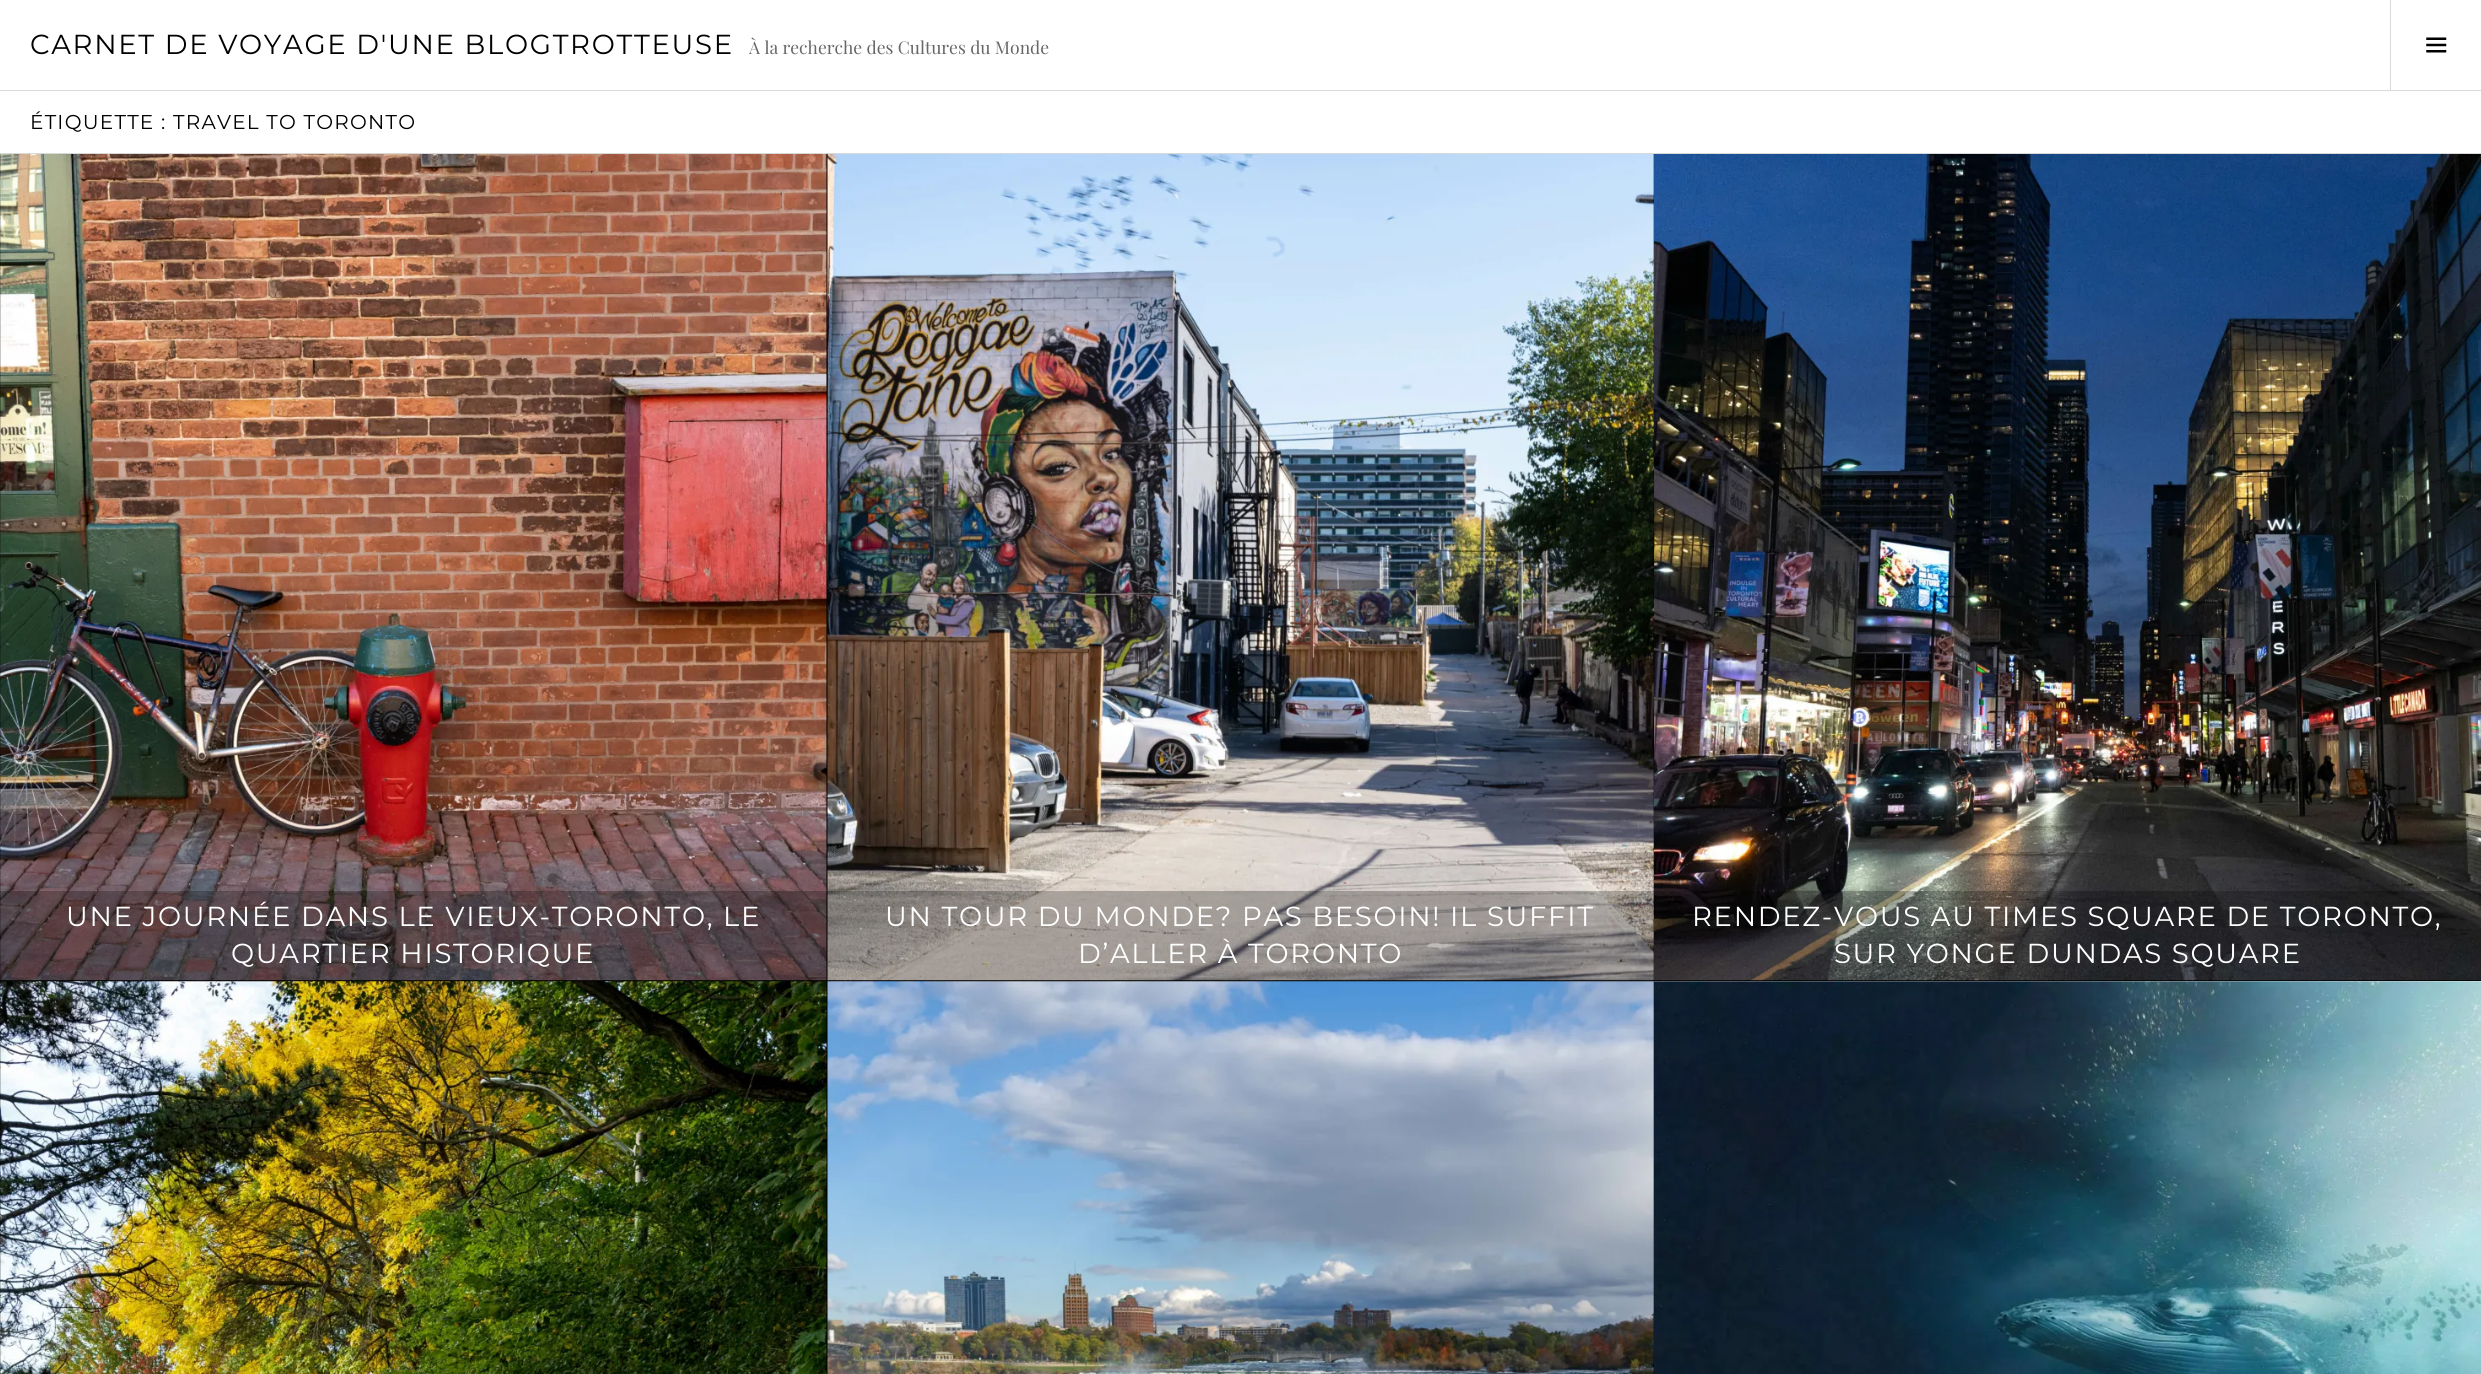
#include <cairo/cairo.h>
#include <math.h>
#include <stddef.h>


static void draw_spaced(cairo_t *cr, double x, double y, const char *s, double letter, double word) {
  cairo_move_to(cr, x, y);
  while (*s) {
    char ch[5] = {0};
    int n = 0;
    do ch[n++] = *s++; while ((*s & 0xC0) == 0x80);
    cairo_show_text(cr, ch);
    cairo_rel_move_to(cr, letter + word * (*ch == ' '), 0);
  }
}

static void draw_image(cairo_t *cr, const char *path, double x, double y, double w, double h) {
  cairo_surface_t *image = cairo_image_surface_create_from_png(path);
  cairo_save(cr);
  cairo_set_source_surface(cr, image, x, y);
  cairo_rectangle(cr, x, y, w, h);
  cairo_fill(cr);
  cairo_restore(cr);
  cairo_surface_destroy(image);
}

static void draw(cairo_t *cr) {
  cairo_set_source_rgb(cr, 1, 1, 1);
  cairo_paint(cr);
  cairo_set_source_rgb(cr, 217 / 255.0, 217 / 255.0, 217 / 255.0);
  cairo_rectangle(cr, 0, 90, 2481, 1);
  cairo_fill(cr);
  cairo_rectangle(cr, 2390, 0, 1, 90);
  cairo_fill(cr);
  draw_image(cr, "images/1.png", 2426, 37, 21, 16);
  cairo_rectangle(cr, 0, 153, 2481, 1);
  cairo_fill(cr);
  cairo_set_source_rgb(cr, 0, 0, 0);
  cairo_rectangle(cr, 0, 154, 1654, 827);
  cairo_fill(cr);
  draw_image(cr, "images/2.png", 0, 154, 827, 827);
  draw_image(cr, "images/3.png", 827, 154, 827, 827);
  cairo_set_source_rgba(cr, 0, 0, 0, 0.25);
  cairo_rectangle(cr, 0, 891, 828, 90);
  cairo_fill(cr);
  cairo_rectangle(cr, 828, 891, 826, 90);
  cairo_fill(cr);
  cairo_set_source_rgb(cr, 0, 0, 0);
  cairo_rectangle(cr, 1654, 980, 827, 1);
  cairo_fill(cr);
  draw_image(cr, "images/4.png", 1654, 154, 827, 827);
  cairo_set_source_rgba(cr, 0, 0, 0, 0.25);
  cairo_rectangle(cr, 1654, 891, 827, 90);
  cairo_fill(cr);
  cairo_set_source_rgb(cr, 0, 0, 0);
  cairo_rectangle(cr, 0, 981, 1654, 393);
  cairo_fill(cr);
  draw_image(cr, "images/5.png", 0, 981, 827, 393);
  draw_image(cr, "images/6.png", 827, 981, 827, 393);
  draw_image(cr, "images/7.png", 1654, 981, 827, 393);
  cairo_select_font_face(cr, "Montserrat", CAIRO_FONT_SLANT_NORMAL, CAIRO_FONT_WEIGHT_NORMAL);
  cairo_set_font_size(cr, 27.5);
  draw_spaced(cr, 30, 54, "CARNET DE VOYAGE D'UNE BLOGTROTTEUSE", 1.7, 0);
  cairo_select_font_face(cr, "Playfair Display", CAIRO_FONT_SLANT_NORMAL, CAIRO_FONT_WEIGHT_NORMAL);
  cairo_set_font_size(cr, 17.5);
  cairo_set_source_rgb(cr, 102 / 255.0, 102 / 255.0, 102 / 255.0);
  cairo_move_to(cr, 749, 54);
  cairo_show_text(cr, "À la recherche des Cultures du Monde");
  cairo_select_font_face(cr, "Montserrat", CAIRO_FONT_SLANT_NORMAL, CAIRO_FONT_WEIGHT_NORMAL);
  cairo_set_font_size(cr, 20);
  cairo_set_source_rgb(cr, 0, 0, 0);
  draw_spaced(cr, 30, 129, "ÉTIQUETTE : TRAVEL TO TORONTO", 1.25, 0);
  cairo_set_font_size(cr, 27.5);
  cairo_set_source_rgb(cr, 1, 1, 1);
  draw_spaced(cr, 66, 926, "UNE JOURNÉE DANS LE VIEUX-TORONTO, LE", 1.7, 0);
  draw_spaced(cr, 231, 963, "QUARTIER HISTORIQUE", 1.7, 0);
  draw_spaced(cr, 885, 926, "UN TOUR DU MONDE? PAS BESOIN! IL SUFFIT", 1.7, 0);
  draw_spaced(cr, 1078, 963, "D’ALLER À TORONTO", 1.7, 0);
  draw_spaced(cr, 1692, 926, "RENDEZ-VOUS AU TIMES SQUARE DE TORONTO,", 1.7, 0);
  draw_spaced(cr, 1834, 963, "SUR YONGE DUNDAS SQUARE", 1.7, 0);
}

int main(void) {
  cairo_surface_t *surface = cairo_image_surface_create(CAIRO_FORMAT_RGB24, 2481, 1374);
  cairo_t *cr = cairo_create(surface);
  cairo_font_options_t *options = cairo_font_options_create();
  cairo_font_options_set_hint_metrics(options, CAIRO_HINT_METRICS_OFF);
  cairo_font_options_set_hint_style(options, CAIRO_HINT_STYLE_NONE);
  cairo_set_font_options(cr, options);
  cairo_set_miter_limit(cr, 4);
  draw(cr);
  cairo_surface_write_to_png(surface, "out.png");
  cairo_font_options_destroy(options);
  cairo_destroy(cr);
  cairo_surface_destroy(surface);
  return 0;
}
